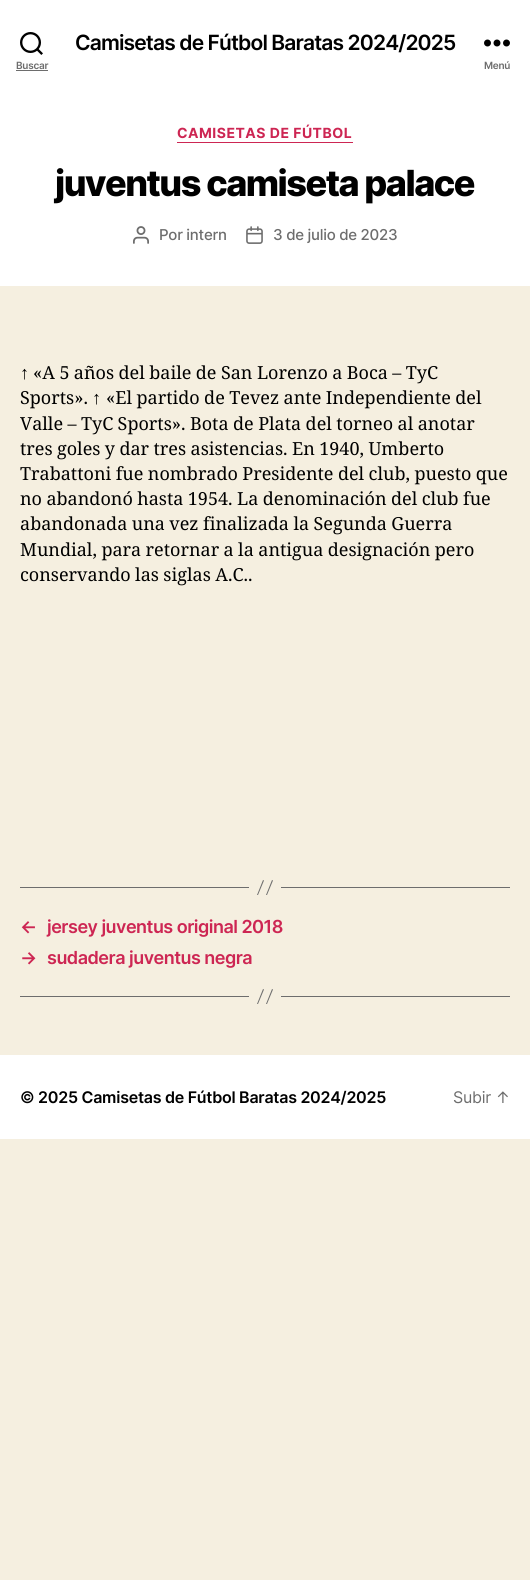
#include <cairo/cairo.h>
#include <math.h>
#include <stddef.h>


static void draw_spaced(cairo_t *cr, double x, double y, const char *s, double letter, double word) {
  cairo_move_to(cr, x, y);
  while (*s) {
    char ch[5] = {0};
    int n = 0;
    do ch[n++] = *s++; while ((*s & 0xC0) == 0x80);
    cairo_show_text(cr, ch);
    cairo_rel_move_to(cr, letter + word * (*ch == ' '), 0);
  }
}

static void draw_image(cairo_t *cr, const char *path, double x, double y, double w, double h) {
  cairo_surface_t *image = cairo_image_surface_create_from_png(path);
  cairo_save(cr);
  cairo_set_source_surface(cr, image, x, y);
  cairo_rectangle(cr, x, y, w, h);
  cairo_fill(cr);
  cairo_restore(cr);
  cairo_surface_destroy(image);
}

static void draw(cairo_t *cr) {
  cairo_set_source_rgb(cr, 245 / 255.0, 239 / 255.0, 224 / 255.0);
  cairo_paint(cr);
  cairo_set_source_rgb(cr, 1, 1, 1);
  cairo_rectangle(cr, 0, 0, 530, 286);
  cairo_fill(cr);
  draw_image(cr, "images/1.png", 20, 32, 23, 23);
  cairo_set_source_rgb(cr, 109 / 255.0, 109 / 255.0, 109 / 255.0);
  cairo_rectangle(cr, 16, 70, 32, 1);
  cairo_fill(cr);
  draw_image(cr, "images/2.png", 484, 39, 26, 8);
  cairo_set_source_rgb(cr, 205 / 255.0, 38 / 255.0, 83 / 255.0);
  cairo_rectangle(cr, 177, 142, 176, 1);
  cairo_fill(cr);
  draw_image(cr, "images/3.png", 133, 226, 16, 18);
  draw_image(cr, "images/4.png", 246, 226, 17, 18);
  cairo_set_source_rgb(cr, 109 / 255.0, 109 / 255.0, 109 / 255.0);
  cairo_rectangle(cr, 281, 887, 229, 1);
  cairo_fill(cr);
  cairo_rectangle(cr, 20, 887, 229, 1);
  cairo_fill(cr);
  cairo_new_path(cr);
  cairo_move_to(cr, 263, 880);
  cairo_line_to(cr, 264, 880.5);
  cairo_line_to(cr, 258, 895);
  cairo_line_to(cr, 257, 895);
  cairo_close_path(cr);
  cairo_move_to(cr, 272, 880);
  cairo_line_to(cr, 273, 880.5);
  cairo_line_to(cr, 267, 895);
  cairo_line_to(cr, 266, 895);
  cairo_close_path(cr);
  cairo_fill(cr);
  cairo_rectangle(cr, 281, 996, 229, 1);
  cairo_fill(cr);
  cairo_rectangle(cr, 20, 996, 229, 1);
  cairo_fill(cr);
  cairo_new_path(cr);
  cairo_move_to(cr, 263, 989);
  cairo_line_to(cr, 264, 989.5);
  cairo_line_to(cr, 258, 1004);
  cairo_line_to(cr, 257, 1004);
  cairo_close_path(cr);
  cairo_move_to(cr, 272, 989);
  cairo_line_to(cr, 273, 989.5);
  cairo_line_to(cr, 267, 1004);
  cairo_line_to(cr, 266, 1004);
  cairo_close_path(cr);
  cairo_fill(cr);
  cairo_set_source_rgb(cr, 1, 1, 1);
  cairo_rectangle(cr, 0, 1055, 530, 84);
  cairo_fill(cr);
  cairo_select_font_face(cr, "Inter SemiBold", CAIRO_FONT_SLANT_NORMAL, CAIRO_FONT_WEIGHT_NORMAL);
  cairo_set_font_size(cr, 21);
  cairo_set_source_rgb(cr, 0, 0, 0);
  draw_spaced(cr, 75, 50, "Camisetas de Fútbol Baratas 2024/2025", -0.85, 0);
  cairo_set_font_size(cr, 10);
  cairo_set_source_rgb(cr, 109 / 255.0, 109 / 255.0, 109 / 255.0);
  draw_spaced(cr, 16, 69, "Buscar", -0.25, 0);
  draw_spaced(cr, 484, 69, "Menú", -0.25, 0);
  cairo_select_font_face(cr, "Inter", CAIRO_FONT_SLANT_NORMAL, CAIRO_FONT_WEIGHT_BOLD);
  cairo_set_font_size(cr, 14);
  cairo_set_source_rgb(cr, 205 / 255.0, 38 / 255.0, 83 / 255.0);
  draw_spaced(cr, 177, 138, "CAMISETAS DE FÚTBOL", 0.5, 0);
  cairo_select_font_face(cr, "Inter ExtraBold", CAIRO_FONT_SLANT_NORMAL, CAIRO_FONT_WEIGHT_NORMAL);
  cairo_set_font_size(cr, 36);
  cairo_set_source_rgb(cr, 0, 0, 0);
  draw_spaced(cr, 55, 196, "juventus camiseta palace", -1.5, 0);
  cairo_select_font_face(cr, "Inter Medium", CAIRO_FONT_SLANT_NORMAL, CAIRO_FONT_WEIGHT_NORMAL);
  cairo_set_font_size(cr, 15);
  cairo_set_source_rgb(cr, 109 / 255.0, 109 / 255.0, 109 / 255.0);
  draw_spaced(cr, 159, 240, "Por intern", -0.25, 0);
  draw_spaced(cr, 273, 240, "3 de julio de 2023", -0.25, 0);
  cairo_select_font_face(cr, "Liberation Serif", CAIRO_FONT_SLANT_NORMAL, CAIRO_FONT_WEIGHT_NORMAL);
  cairo_set_font_size(cr, 18);
  cairo_set_source_rgb(cr, 0, 0, 0);
  cairo_move_to(cr, 20, 379);
  cairo_show_text(cr, "↑");
  cairo_select_font_face(cr, "Noto Serif", CAIRO_FONT_SLANT_NORMAL, CAIRO_FONT_WEIGHT_NORMAL);
  draw_spaced(cr, 33, 379, "«A 5 años del baile de San Lorenzo a Boca – TyC", 0, -0.25);
  cairo_move_to(cr, 20, 404);
  cairo_show_text(cr, "Sports».");
  cairo_select_font_face(cr, "Liberation Serif", CAIRO_FONT_SLANT_NORMAL, CAIRO_FONT_WEIGHT_NORMAL);
  cairo_move_to(cr, 92, 404);
  cairo_show_text(cr, "↑");
  cairo_select_font_face(cr, "Noto Serif", CAIRO_FONT_SLANT_NORMAL, CAIRO_FONT_WEIGHT_NORMAL);
  draw_spaced(cr, 106, 404, "«El partido de Tevez ante Independiente del", 0, -0.25);
  draw_spaced(cr, 20, 430, "Valle – TyC Sports». Bota de Plata del torneo al anotar", 0, -0.25);
  draw_spaced(cr, 20, 455, "tres goles y dar tres asistencias. En 1940, Umberto", 0, -0.25);
  draw_spaced(cr, 20, 480, "Trabattoni fue nombrado Presidente del club, puesto que", 0, -0.25);
  draw_spaced(cr, 20, 505, "no abandonó hasta 1954. La denominación del club fue", 0, -0.25);
  draw_spaced(cr, 20, 530, "abandonada una vez finalizada la Segunda Guerra", 0, -0.25);
  draw_spaced(cr, 20, 556, "Mundial, para retornar a la antigua designación pero", 0, -0.25);
  draw_spaced(cr, 20, 581, "conservando las siglas A.C..", 0, -0.25);
  cairo_select_font_face(cr, "Inter SemiBold", CAIRO_FONT_SLANT_NORMAL, CAIRO_FONT_WEIGHT_NORMAL);
  cairo_set_source_rgb(cr, 205 / 255.0, 38 / 255.0, 83 / 255.0);
  draw_spaced(cr, 20, 933, "←", -0.5, 0);
  draw_spaced(cr, 47, 933, "jersey juventus original 2018", -0.5, 0);
  draw_spaced(cr, 20, 964, "→", -0.5, 0);
  draw_spaced(cr, 47, 964, "sudadera juventus negra", -0.5, 0);
  cairo_set_font_size(cr, 16);
  cairo_set_source_rgb(cr, 0, 0, 0);
  draw_spaced(cr, 20, 1103, "© 2025 Camisetas de Fútbol Baratas 2024/2025", -0.25, 0);
  cairo_select_font_face(cr, "Inter", CAIRO_FONT_SLANT_NORMAL, CAIRO_FONT_WEIGHT_NORMAL);
  cairo_set_source_rgb(cr, 109 / 255.0, 109 / 255.0, 109 / 255.0);
  draw_spaced(cr, 453, 1103, "Subir ↑", -0.25, 0);
}

int main(void) {
  cairo_surface_t *surface = cairo_image_surface_create(CAIRO_FORMAT_RGB24, 530, 1580);
  cairo_t *cr = cairo_create(surface);
  cairo_font_options_t *options = cairo_font_options_create();
  cairo_font_options_set_hint_metrics(options, CAIRO_HINT_METRICS_OFF);
  cairo_font_options_set_hint_style(options, CAIRO_HINT_STYLE_NONE);
  cairo_set_font_options(cr, options);
  cairo_set_miter_limit(cr, 4);
  draw(cr);
  cairo_surface_write_to_png(surface, "out.png");
  cairo_font_options_destroy(options);
  cairo_destroy(cr);
  cairo_surface_destroy(surface);
  return 0;
}
